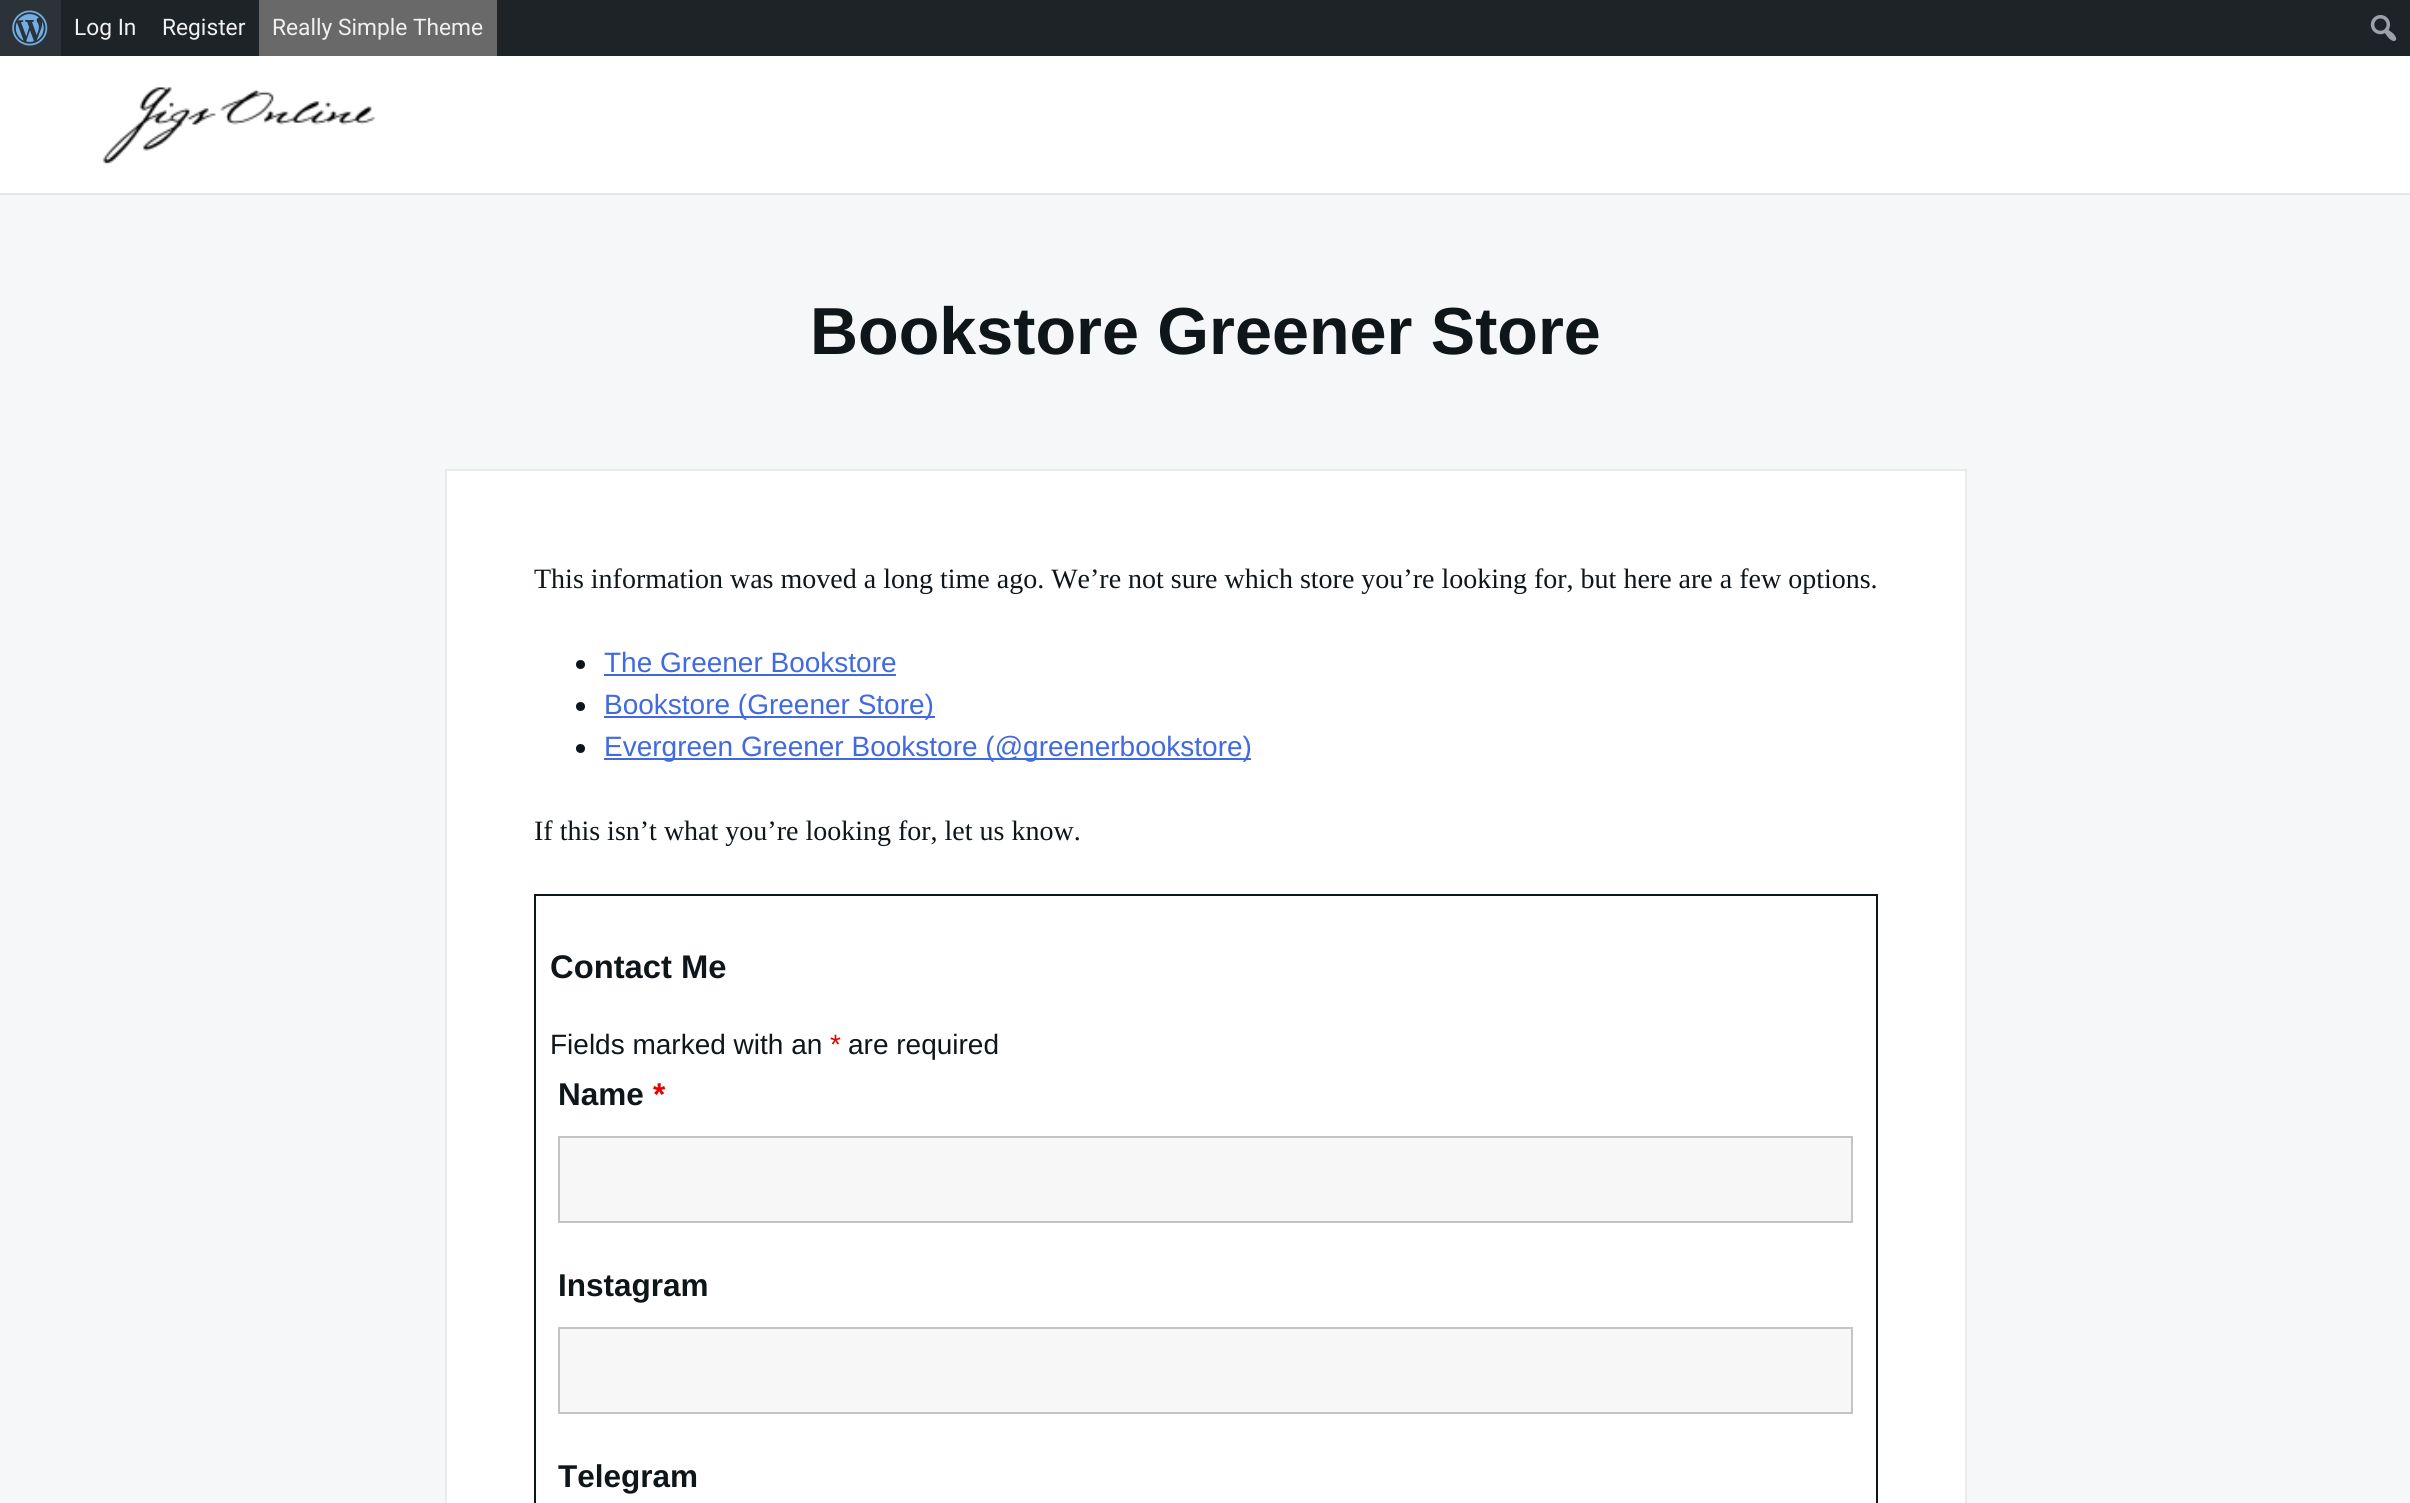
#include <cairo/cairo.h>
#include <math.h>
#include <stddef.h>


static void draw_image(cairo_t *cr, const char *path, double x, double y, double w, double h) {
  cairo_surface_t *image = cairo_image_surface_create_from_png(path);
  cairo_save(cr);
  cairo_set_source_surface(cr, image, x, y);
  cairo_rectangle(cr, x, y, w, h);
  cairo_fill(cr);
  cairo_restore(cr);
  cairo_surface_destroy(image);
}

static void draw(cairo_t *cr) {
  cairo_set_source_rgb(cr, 245 / 255.0, 247 / 255.0, 248 / 255.0);
  cairo_paint(cr);
  cairo_set_source_rgb(cr, 224 / 255.0, 227 / 255.0, 229 / 255.0);
  cairo_rectangle(cr, 0, 194, 2410, 1);
  cairo_fill(cr);
  cairo_set_source_rgb(cr, 29 / 255.0, 35 / 255.0, 39 / 255.0);
  cairo_rectangle(cr, 61, 0, 2349, 56);
  cairo_fill(cr);
  cairo_set_source_rgb(cr, 44 / 255.0, 51 / 255.0, 56 / 255.0);
  cairo_rectangle(cr, 0, 0, 61, 56);
  cairo_fill(cr);
  draw_image(cr, "images/1.png", 12, 10, 36, 36);
  cairo_set_source_rgb(cr, 105 / 255.0, 105 / 255.0, 105 / 255.0);
  cairo_rectangle(cr, 259, 0, 238, 56);
  cairo_fill(cr);
  draw_image(cr, "images/2.png", 2370, 15, 27, 26);
  cairo_set_source_rgb(cr, 1, 1, 1);
  cairo_rectangle(cr, 0, 56, 2410, 137);
  cairo_fill(cr);
  cairo_set_source_rgb(cr, 233 / 255.0, 235 / 255.0, 235 / 255.0);
  cairo_rectangle(cr, 0, 193, 2410, 1);
  cairo_fill(cr);
  draw_image(cr, "images/3.png", 102, 87, 273, 78);
  cairo_set_source_rgb(cr, 1, 1, 1);
  cairo_rectangle(cr, 446, 470, 1520, 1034);
  cairo_fill_preserve(cr);
  cairo_set_source_rgb(cr, 233 / 255.0, 235 / 255.0, 235 / 255.0);
  cairo_stroke(cr);
  cairo_set_source_rgb(cr, 15 / 255.0, 22 / 255.0, 26 / 255.0);
  cairo_arc(cr, 580.5, 664.5, 4.5, 0, 2 * M_PI);
  cairo_fill(cr);
  cairo_set_source_rgb(cr, 65 / 255.0, 105 / 255.0, 225 / 255.0);
  cairo_rectangle(cr, 604, 674, 292, 2);
  cairo_fill(cr);
  cairo_set_source_rgb(cr, 15 / 255.0, 22 / 255.0, 26 / 255.0);
  cairo_arc(cr, 580.5, 706.5, 4.5, 0, 2 * M_PI);
  cairo_fill(cr);
  cairo_set_source_rgb(cr, 65 / 255.0, 105 / 255.0, 225 / 255.0);
  cairo_rectangle(cr, 604, 716, 331, 2);
  cairo_fill(cr);
  cairo_set_source_rgb(cr, 15 / 255.0, 22 / 255.0, 26 / 255.0);
  cairo_arc(cr, 580.5, 748.5, 4.5, 0, 2 * M_PI);
  cairo_fill(cr);
  cairo_set_source_rgb(cr, 65 / 255.0, 105 / 255.0, 225 / 255.0);
  cairo_rectangle(cr, 604, 758, 647, 2);
  cairo_fill(cr);
  cairo_set_source_rgb(cr, 15 / 255.0, 22 / 255.0, 26 / 255.0);
  cairo_rectangle(cr, 534, 894, 1344, 2);
  cairo_fill(cr);
  cairo_rectangle(cr, 1876, 894, 2, 609);
  cairo_fill(cr);
  cairo_rectangle(cr, 534, 894, 2, 609);
  cairo_fill(cr);
  cairo_set_source_rgb(cr, 247 / 255.0, 247 / 255.0, 247 / 255.0);
  cairo_rectangle(cr, 559, 1137, 1293, 85);
  cairo_fill_preserve(cr);
  cairo_set_source_rgb(cr, 196 / 255.0, 196 / 255.0, 196 / 255.0);
  cairo_stroke(cr);
  cairo_set_source_rgb(cr, 247 / 255.0, 247 / 255.0, 247 / 255.0);
  cairo_rectangle(cr, 559, 1328, 1293, 85);
  cairo_fill_preserve(cr);
  cairo_set_source_rgb(cr, 196 / 255.0, 196 / 255.0, 196 / 255.0);
  cairo_stroke(cr);
  cairo_select_font_face(cr, "Roboto", CAIRO_FONT_SLANT_NORMAL, CAIRO_FONT_WEIGHT_NORMAL);
  cairo_set_font_size(cr, 22.75);
  cairo_set_source_rgb(cr, 240 / 255.0, 240 / 255.0, 241 / 255.0);
  cairo_move_to(cr, 74, 35);
  cairo_show_text(cr, "Log In");
  cairo_move_to(cr, 162, 35);
  cairo_show_text(cr, "Register");
  cairo_move_to(cr, 272, 35);
  cairo_show_text(cr, "Really Simple Theme");
  cairo_select_font_face(cr, "Liberation Sans", CAIRO_FONT_SLANT_NORMAL, CAIRO_FONT_WEIGHT_BOLD);
  cairo_set_font_size(cr, 66.5);
  cairo_set_source_rgb(cr, 15 / 255.0, 22 / 255.0, 26 / 255.0);
  cairo_move_to(cr, 810, 354);
  cairo_show_text(cr, "Bookstore Greener Store");
  cairo_select_font_face(cr, "Liberation Serif", CAIRO_FONT_SLANT_NORMAL, CAIRO_FONT_WEIGHT_NORMAL);
  cairo_set_font_size(cr, 28);
  cairo_move_to(cr, 534, 588);
  cairo_show_text(cr, "This information was moved a long time ago. We’re not sure which store you’re looking for, but here are a few options.");
  cairo_select_font_face(cr, "Liberation Sans", CAIRO_FONT_SLANT_NORMAL, CAIRO_FONT_WEIGHT_NORMAL);
  cairo_set_source_rgb(cr, 65 / 255.0, 105 / 255.0, 225 / 255.0);
  cairo_move_to(cr, 604, 672);
  cairo_show_text(cr, "The Greener Bookstore");
  cairo_move_to(cr, 604, 714);
  cairo_show_text(cr, "Bookstore (Greener Store)");
  cairo_move_to(cr, 604, 756);
  cairo_show_text(cr, "Evergreen Greener Bookstore (@greenerbookstore)");
  cairo_select_font_face(cr, "Liberation Serif", CAIRO_FONT_SLANT_NORMAL, CAIRO_FONT_WEIGHT_NORMAL);
  cairo_set_source_rgb(cr, 15 / 255.0, 22 / 255.0, 26 / 255.0);
  cairo_move_to(cr, 534, 840);
  cairo_show_text(cr, "If this isn’t what you’re looking for, let us know.");
  cairo_select_font_face(cr, "Liberation Sans", CAIRO_FONT_SLANT_NORMAL, CAIRO_FONT_WEIGHT_BOLD);
  cairo_set_font_size(cr, 32.75);
  cairo_move_to(cr, 550, 978);
  cairo_show_text(cr, "Contact Me");
  cairo_select_font_face(cr, "Liberation Sans", CAIRO_FONT_SLANT_NORMAL, CAIRO_FONT_WEIGHT_NORMAL);
  cairo_set_font_size(cr, 28);
  cairo_move_to(cr, 550, 1054);
  cairo_show_text(cr, "Fields marked with an");
  cairo_set_source_rgb(cr, 232 / 255.0, 0, 0);
  cairo_move_to(cr, 830, 1054);
  cairo_show_text(cr, "*");
  cairo_set_source_rgb(cr, 15 / 255.0, 22 / 255.0, 26 / 255.0);
  cairo_move_to(cr, 848, 1054);
  cairo_show_text(cr, "are required");
  cairo_select_font_face(cr, "Liberation Sans", CAIRO_FONT_SLANT_NORMAL, CAIRO_FONT_WEIGHT_BOLD);
  cairo_set_font_size(cr, 31.5);
  cairo_move_to(cr, 558, 1105);
  cairo_show_text(cr, "Name");
  cairo_set_source_rgb(cr, 232 / 255.0, 0, 0);
  cairo_move_to(cr, 653, 1105);
  cairo_show_text(cr, "*");
  cairo_set_source_rgb(cr, 15 / 255.0, 22 / 255.0, 26 / 255.0);
  cairo_move_to(cr, 558, 1296);
  cairo_show_text(cr, "Instagram");
  cairo_move_to(cr, 558, 1487);
  cairo_show_text(cr, "Telegram");
}

int main(void) {
  cairo_surface_t *surface = cairo_image_surface_create(CAIRO_FORMAT_RGB24, 2410, 1503);
  cairo_t *cr = cairo_create(surface);
  cairo_font_options_t *options = cairo_font_options_create();
  cairo_font_options_set_hint_metrics(options, CAIRO_HINT_METRICS_OFF);
  cairo_font_options_set_hint_style(options, CAIRO_HINT_STYLE_NONE);
  cairo_set_font_options(cr, options);
  cairo_set_miter_limit(cr, 4);
  draw(cr);
  cairo_surface_write_to_png(surface, "out.png");
  cairo_font_options_destroy(options);
  cairo_destroy(cr);
  cairo_surface_destroy(surface);
  return 0;
}
